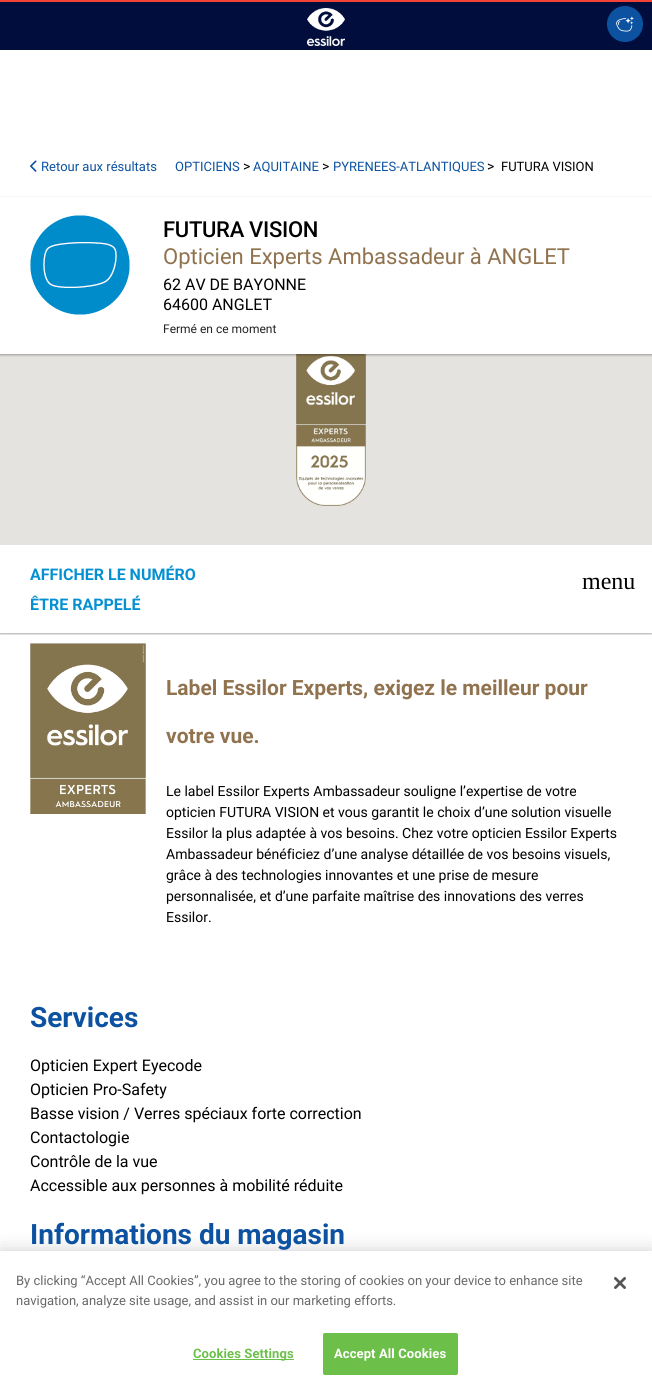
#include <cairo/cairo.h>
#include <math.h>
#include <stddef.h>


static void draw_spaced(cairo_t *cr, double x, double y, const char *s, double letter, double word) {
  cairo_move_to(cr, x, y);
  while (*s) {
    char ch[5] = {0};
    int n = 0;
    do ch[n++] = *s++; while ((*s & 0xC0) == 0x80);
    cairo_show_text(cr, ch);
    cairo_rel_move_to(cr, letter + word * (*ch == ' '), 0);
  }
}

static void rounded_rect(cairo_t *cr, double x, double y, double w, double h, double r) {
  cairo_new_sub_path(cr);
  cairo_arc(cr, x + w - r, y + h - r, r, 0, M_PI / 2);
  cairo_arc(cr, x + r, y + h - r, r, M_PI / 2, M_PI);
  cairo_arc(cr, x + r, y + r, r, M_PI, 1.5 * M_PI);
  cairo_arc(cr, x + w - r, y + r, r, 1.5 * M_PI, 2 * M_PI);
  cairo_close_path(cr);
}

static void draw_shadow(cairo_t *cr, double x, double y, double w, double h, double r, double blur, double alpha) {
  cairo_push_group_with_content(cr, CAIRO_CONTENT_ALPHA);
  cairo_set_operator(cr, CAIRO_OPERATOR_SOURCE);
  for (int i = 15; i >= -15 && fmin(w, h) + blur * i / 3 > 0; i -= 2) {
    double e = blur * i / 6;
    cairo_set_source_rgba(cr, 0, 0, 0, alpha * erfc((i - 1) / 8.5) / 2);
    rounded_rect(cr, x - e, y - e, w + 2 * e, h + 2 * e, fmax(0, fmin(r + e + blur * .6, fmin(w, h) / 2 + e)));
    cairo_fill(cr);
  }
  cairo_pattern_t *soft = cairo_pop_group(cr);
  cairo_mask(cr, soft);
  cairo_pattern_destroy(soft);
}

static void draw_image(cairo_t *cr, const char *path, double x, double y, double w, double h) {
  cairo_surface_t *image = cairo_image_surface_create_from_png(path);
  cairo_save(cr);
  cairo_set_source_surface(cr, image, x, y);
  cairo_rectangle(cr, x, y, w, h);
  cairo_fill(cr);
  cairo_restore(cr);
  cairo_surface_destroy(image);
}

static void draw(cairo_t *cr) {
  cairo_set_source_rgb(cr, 1, 1, 1);
  cairo_paint(cr);
  cairo_set_source_rgb(cr, 244 / 255.0, 67 / 255.0, 54 / 255.0);
  cairo_rectangle(cr, 0, 0, 652, 2);
  cairo_fill(cr);
  cairo_set_source_rgb(cr, 1 / 255.0, 14 / 255.0, 61 / 255.0);
  cairo_rectangle(cr, 0, 2, 652, 48);
  cairo_fill(cr);
  draw_image(cr, "images/1.png", 307, 8, 38, 38);
  cairo_set_source_rgb(cr, 13 / 255.0, 82 / 255.0, 160 / 255.0);
  cairo_arc(cr, 625, 24, 18, 0, 2 * M_PI);
  cairo_fill(cr);
  draw_image(cr, "images/2.png", 616, 16, 18, 16);
  draw_image(cr, "images/3.png", 30, 160, 7, 12);
  cairo_set_source_rgb(cr, 229 / 255.0, 227 / 255.0, 223 / 255.0);
  cairo_rectangle(cr, 0, 354, 652, 191);
  cairo_fill(cr);
  draw_image(cr, "images/5.png", 296, 354, 70, 152);
  cairo_set_source_rgb(cr, 0, 0, 0);
  draw_shadow(cr, -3, 198, 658, 157, 0, 1, 0.24);
  draw_shadow(cr, -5, 198, 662, 157, 0, 1.5, 0.12);
  cairo_set_source_rgb(cr, 1, 1, 1);
  cairo_rectangle(cr, 0, 197, 652, 157);
  cairo_fill(cr);
  draw_image(cr, "images/4.png", 30, 215, 100, 100);
  cairo_save(cr);
  cairo_rectangle(cr, 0, 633, 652, 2);
  cairo_clip(cr);
  cairo_set_source_rgb(cr, 0, 0, 0);
  draw_shadow(cr, 0, 546, 652, 88, 0, 1, 0.24);
  draw_shadow(cr, 0, 546, 652, 88, 0, 1.5, 0.12);
  cairo_restore(cr);
  draw_image(cr, "images/6.png", 30, 643, 116, 171);
  cairo_set_source_rgb(cr, 0, 0, 0);
  draw_shadow(cr, 0, 1251, 652, 140, 0, 9, 0.2);
  cairo_set_source_rgb(cr, 1, 1, 1);
  cairo_rectangle(cr, 0, 1251, 652, 140);
  cairo_fill(cr);
  cairo_set_source_rgb(cr, 108 / 255.0, 192 / 255.0, 74 / 255.0);
  cairo_rectangle(cr, 193, 1359, 101, 1);
  cairo_fill(cr);
  rounded_rect(cr, 323.5, 1333.5, 134, 41, 1.5);
  cairo_fill_preserve(cr);
  cairo_set_line_width(cr, 1);
  cairo_stroke(cr);
  draw_image(cr, "images/7.png", 614, 1277, 12, 12);
  cairo_select_font_face(cr, "Roboto", CAIRO_FONT_SLANT_NORMAL, CAIRO_FONT_WEIGHT_NORMAL);
  cairo_set_font_size(cr, 13);
  cairo_set_source_rgb(cr, 13 / 255.0, 82 / 255.0, 160 / 255.0);
  cairo_move_to(cr, 41, 171);
  cairo_show_text(cr, "Retour aux résultats");
  cairo_move_to(cr, 175, 171);
  cairo_show_text(cr, "OPTICIENS");
  cairo_set_font_size(cr, 14);
  cairo_set_source_rgb(cr, 0, 0, 0);
  cairo_move_to(cr, 243, 171);
  cairo_show_text(cr, ">");
  cairo_set_font_size(cr, 13);
  cairo_set_source_rgb(cr, 13 / 255.0, 82 / 255.0, 160 / 255.0);
  cairo_move_to(cr, 253, 171);
  cairo_show_text(cr, "AQUITAINE");
  cairo_set_font_size(cr, 14);
  cairo_set_source_rgb(cr, 0, 0, 0);
  cairo_move_to(cr, 322, 171);
  cairo_show_text(cr, ">");
  cairo_set_font_size(cr, 13);
  cairo_set_source_rgb(cr, 13 / 255.0, 82 / 255.0, 160 / 255.0);
  cairo_move_to(cr, 333, 171);
  cairo_show_text(cr, "PYRENEES-ATLANTIQUES");
  cairo_set_font_size(cr, 14);
  cairo_set_source_rgb(cr, 0, 0, 0);
  cairo_move_to(cr, 487, 171);
  cairo_show_text(cr, ">");
  cairo_set_font_size(cr, 13);
  cairo_move_to(cr, 501, 171);
  cairo_show_text(cr, "FUTURA VISION");
  cairo_select_font_face(cr, "Roboto Medium", CAIRO_FONT_SLANT_NORMAL, CAIRO_FONT_WEIGHT_NORMAL);
  cairo_set_font_size(cr, 22);
  draw_spaced(cr, 163, 237, "FUTURA VISION", -0.3, 0);
  cairo_select_font_face(cr, "Roboto", CAIRO_FONT_SLANT_NORMAL, CAIRO_FONT_WEIGHT_NORMAL);
  cairo_set_source_rgb(cr, 144 / 255.0, 115 / 255.0, 78 / 255.0);
  cairo_move_to(cr, 163, 264);
  cairo_show_text(cr, "Opticien Experts Ambassadeur à ANGLET");
  cairo_set_font_size(cr, 16);
  cairo_set_source_rgb(cr, 0, 0, 0);
  cairo_move_to(cr, 163, 290);
  cairo_show_text(cr, "62 AV DE BAYONNE");
  cairo_move_to(cr, 163, 310);
  cairo_show_text(cr, "64600 ANGLET");
  cairo_set_font_size(cr, 12);
  cairo_set_source_rgb(cr, 34 / 255.0, 34 / 255.0, 34 / 255.0);
  cairo_move_to(cr, 163, 333);
  cairo_show_text(cr, "Fermé en ce moment");
  cairo_select_font_face(cr, "Roboto", CAIRO_FONT_SLANT_NORMAL, CAIRO_FONT_WEIGHT_BOLD);
  cairo_set_font_size(cr, 16);
  cairo_set_source_rgb(cr, 5 / 255.0, 145 / 255.0, 209 / 255.0);
  cairo_move_to(cr, 30, 580);
  cairo_show_text(cr, "AFFICHER LE NUMÉRO");
  cairo_move_to(cr, 30, 610);
  cairo_show_text(cr, "ÊTRE RAPPELÉ");
  cairo_select_font_face(cr, "Liberation Serif", CAIRO_FONT_SLANT_NORMAL, CAIRO_FONT_WEIGHT_NORMAL);
  cairo_set_font_size(cr, 24);
  cairo_set_source_rgb(cr, 0, 0, 0);
  cairo_move_to(cr, 582, 589);
  cairo_show_text(cr, "menu");
  cairo_select_font_face(cr, "Roboto", CAIRO_FONT_SLANT_NORMAL, CAIRO_FONT_WEIGHT_BOLD);
  cairo_set_font_size(cr, 21);
  cairo_set_source_rgb(cr, 144 / 255.0, 115 / 255.0, 78 / 255.0);
  cairo_move_to(cr, 166, 695);
  cairo_show_text(cr, "Label Essilor Experts, exigez le meilleur pour");
  cairo_move_to(cr, 166, 743);
  cairo_show_text(cr, "votre vue.");
  cairo_select_font_face(cr, "Roboto", CAIRO_FONT_SLANT_NORMAL, CAIRO_FONT_WEIGHT_NORMAL);
  cairo_set_font_size(cr, 14);
  cairo_set_source_rgb(cr, 0, 0, 0);
  cairo_move_to(cr, 166, 796);
  cairo_show_text(cr, "Le label Essilor Experts Ambassadeur souligne l’expertise de votre");
  cairo_move_to(cr, 166, 817);
  cairo_show_text(cr, "opticien FUTURA VISION et vous garantit le choix d’une solution visuelle");
  cairo_move_to(cr, 166, 838);
  cairo_show_text(cr, "Essilor la plus adaptée à vos besoins. Chez votre opticien Essilor Experts");
  cairo_move_to(cr, 166, 859);
  cairo_show_text(cr, "Ambassadeur bénéficiez d’une analyse détaillée de vos besoins visuels,");
  cairo_move_to(cr, 166, 880);
  cairo_show_text(cr, "grâce à des technologies innovantes et une prise de mesure");
  cairo_move_to(cr, 166, 901);
  cairo_show_text(cr, "personnalisée, et d’une parfaite maîtrise des innovations des verres");
  cairo_move_to(cr, 166, 922);
  cairo_show_text(cr, "Essilor.");
  cairo_select_font_face(cr, "Roboto", CAIRO_FONT_SLANT_NORMAL, CAIRO_FONT_WEIGHT_BOLD);
  cairo_set_font_size(cr, 28);
  cairo_set_source_rgb(cr, 13 / 255.0, 82 / 255.0, 160 / 255.0);
  cairo_move_to(cr, 30, 1027);
  cairo_show_text(cr, "Services");
  cairo_select_font_face(cr, "Roboto", CAIRO_FONT_SLANT_NORMAL, CAIRO_FONT_WEIGHT_NORMAL);
  cairo_set_font_size(cr, 16);
  cairo_set_source_rgb(cr, 0, 0, 0);
  cairo_move_to(cr, 30, 1071);
  cairo_show_text(cr, "Opticien Expert Eyecode");
  cairo_move_to(cr, 30, 1095);
  cairo_show_text(cr, "Opticien Pro-Safety");
  cairo_move_to(cr, 30, 1119);
  cairo_show_text(cr, "Basse vision / Verres spéciaux forte correction");
  cairo_move_to(cr, 30, 1143);
  cairo_show_text(cr, "Contactologie");
  cairo_move_to(cr, 30, 1167);
  cairo_show_text(cr, "Contrôle de la vue");
  cairo_move_to(cr, 30, 1191);
  cairo_show_text(cr, "Accessible aux personnes à mobilité réduite");
  cairo_select_font_face(cr, "Roboto", CAIRO_FONT_SLANT_NORMAL, CAIRO_FONT_WEIGHT_BOLD);
  cairo_set_font_size(cr, 28);
  cairo_set_source_rgb(cr, 13 / 255.0, 82 / 255.0, 160 / 255.0);
  cairo_move_to(cr, 30, 1244);
  cairo_show_text(cr, "Informations du magasin");
  cairo_select_font_face(cr, "Roboto", CAIRO_FONT_SLANT_NORMAL, CAIRO_FONT_WEIGHT_NORMAL);
  cairo_set_font_size(cr, 13);
  cairo_set_source_rgb(cr, 105 / 255.0, 105 / 255.0, 105 / 255.0);
  cairo_move_to(cr, 16, 1285);
  cairo_show_text(cr, "By clicking “Accept All Cookies”, you agree to the storing of cookies on your device to enhance site");
  cairo_move_to(cr, 16, 1305);
  cairo_show_text(cr, "navigation, analyze site usage, and assist in our marketing efforts.");
  cairo_select_font_face(cr, "Roboto", CAIRO_FONT_SLANT_NORMAL, CAIRO_FONT_WEIGHT_BOLD);
  cairo_set_source_rgb(cr, 108 / 255.0, 192 / 255.0, 74 / 255.0);
  draw_spaced(cr, 193, 1358, "Cookies Settings", 0.1, 0);
  cairo_set_source_rgb(cr, 1, 1, 1);
  draw_spaced(cr, 334, 1358, "Accept All Cookies", 0.1, 0);
}

int main(void) {
  cairo_surface_t *surface = cairo_image_surface_create(CAIRO_FORMAT_RGB24, 652, 1391);
  cairo_t *cr = cairo_create(surface);
  cairo_font_options_t *options = cairo_font_options_create();
  cairo_font_options_set_hint_metrics(options, CAIRO_HINT_METRICS_OFF);
  cairo_font_options_set_hint_style(options, CAIRO_HINT_STYLE_NONE);
  cairo_set_font_options(cr, options);
  cairo_set_miter_limit(cr, 4);
  draw(cr);
  cairo_surface_write_to_png(surface, "out.png");
  cairo_font_options_destroy(options);
  cairo_destroy(cr);
  cairo_surface_destroy(surface);
  return 0;
}
